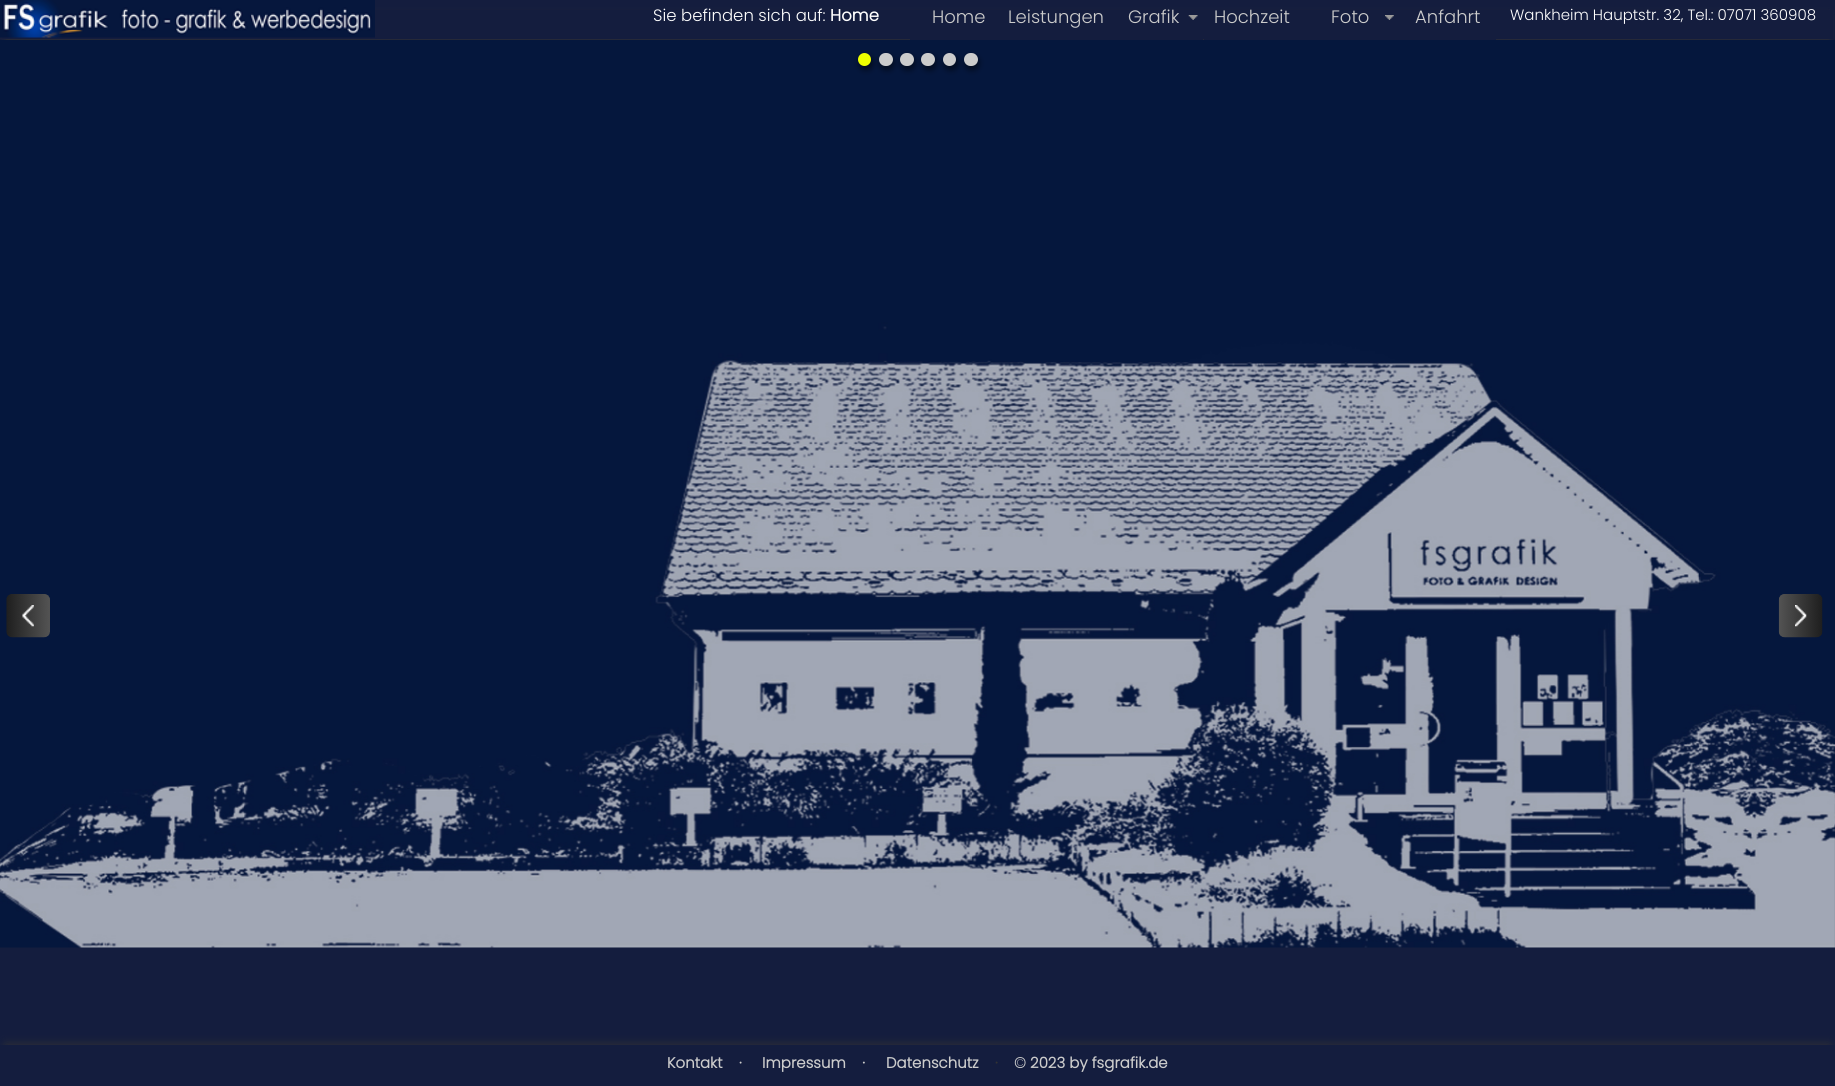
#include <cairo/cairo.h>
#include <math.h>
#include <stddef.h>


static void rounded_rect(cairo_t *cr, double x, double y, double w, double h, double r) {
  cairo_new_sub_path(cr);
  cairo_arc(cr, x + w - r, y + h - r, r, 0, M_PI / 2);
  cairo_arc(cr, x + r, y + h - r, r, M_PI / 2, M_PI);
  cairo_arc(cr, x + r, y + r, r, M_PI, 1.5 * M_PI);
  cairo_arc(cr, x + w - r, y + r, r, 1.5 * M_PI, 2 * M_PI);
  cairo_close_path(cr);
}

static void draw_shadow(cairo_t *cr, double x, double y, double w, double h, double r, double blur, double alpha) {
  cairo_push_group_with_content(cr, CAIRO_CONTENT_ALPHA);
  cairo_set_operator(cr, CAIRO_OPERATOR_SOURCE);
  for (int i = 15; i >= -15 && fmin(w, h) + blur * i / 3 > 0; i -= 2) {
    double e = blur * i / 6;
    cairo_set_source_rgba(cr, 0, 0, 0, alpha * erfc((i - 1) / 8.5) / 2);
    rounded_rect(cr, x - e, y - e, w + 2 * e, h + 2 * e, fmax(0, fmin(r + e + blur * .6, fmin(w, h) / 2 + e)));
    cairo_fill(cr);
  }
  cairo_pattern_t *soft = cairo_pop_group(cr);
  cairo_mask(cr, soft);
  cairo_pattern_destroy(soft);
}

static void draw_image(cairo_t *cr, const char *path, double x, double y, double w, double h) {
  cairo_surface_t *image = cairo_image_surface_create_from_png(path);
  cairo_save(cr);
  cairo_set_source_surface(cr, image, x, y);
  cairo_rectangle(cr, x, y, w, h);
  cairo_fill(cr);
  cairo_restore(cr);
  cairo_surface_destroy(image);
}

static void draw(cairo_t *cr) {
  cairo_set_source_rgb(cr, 20 / 255.0, 29 / 255.0, 62 / 255.0);
  cairo_paint(cr);
  cairo_set_source_rgb(cr, 51 / 255.0, 51 / 255.0, 51 / 255.0);
  draw_shadow(cr, 6, 14, 1823, 26, 0, 3, 1);
  cairo_set_source_rgb(cr, 20 / 255.0, 29 / 255.0, 62 / 255.0);
  cairo_rectangle(cr, 2, 10, 1831, 29);
  cairo_fill(cr);
  draw_image(cr, "images/1.png", 0, 0, 375, 38);
  cairo_rectangle(cr, 910, 39, 293, 1);
  cairo_fill(cr);
  draw_image(cr, "images/2.png", 1188, 15, 10, 5);
  cairo_rectangle(cr, 1204, 39, 292, 1);
  cairo_fill(cr);
  draw_image(cr, "images/3.png", 1385, 15, 9, 5);
  cairo_rectangle(cr, 3, 40, 1829, 4);
  cairo_fill(cr);
  draw_image(cr, "images/4.png", 0, 40, 1835, 908);
  cairo_set_source_rgb(cr, 0, 0, 0);
  draw_shadow(cr, 859, 56, 14, 14, 7, 3, 0.5);
  cairo_set_source_rgb(cr, 238 / 255.0, 1, 0);
  cairo_arc(cr, 864.5, 59.5, 6.5, 0, 2 * M_PI);
  cairo_fill(cr);
  cairo_set_source_rgb(cr, 0, 0, 0);
  draw_shadow(cr, 880, 56, 14, 14, 7, 3, 0.5);
  cairo_set_source_rgb(cr, 204 / 255.0, 204 / 255.0, 204 / 255.0);
  rounded_rect(cr, 879, 53, 14, 13, 6.5);
  cairo_fill(cr);
  cairo_set_source_rgb(cr, 0, 0, 0);
  draw_shadow(cr, 901, 56, 14, 14, 7, 3, 0.5);
  cairo_set_source_rgb(cr, 204 / 255.0, 204 / 255.0, 204 / 255.0);
  rounded_rect(cr, 900, 53, 14, 13, 6.5);
  cairo_fill(cr);
  cairo_set_source_rgb(cr, 0, 0, 0);
  draw_shadow(cr, 923, 56, 13, 14, 6.5, 3, 0.5);
  cairo_set_source_rgb(cr, 204 / 255.0, 204 / 255.0, 204 / 255.0);
  rounded_rect(cr, 921, 53, 14, 13, 6.5);
  cairo_fill(cr);
  cairo_set_source_rgb(cr, 0, 0, 0);
  draw_shadow(cr, 944, 56, 14, 14, 7, 3, 0.5);
  cairo_set_source_rgb(cr, 204 / 255.0, 204 / 255.0, 204 / 255.0);
  cairo_arc(cr, 949.5, 59.5, 6.5, 0, 2 * M_PI);
  cairo_fill(cr);
  cairo_set_source_rgb(cr, 0, 0, 0);
  draw_shadow(cr, 965, 56, 14, 14, 7, 3, 0.5);
  cairo_set_source_rgb(cr, 204 / 255.0, 204 / 255.0, 204 / 255.0);
  rounded_rect(cr, 964, 53, 14, 13, 6.5);
  cairo_fill(cr);
  draw_image(cr, "images/5.png", 6, 594, 44, 44);
  draw_image(cr, "images/6.png", 1778, 594, 45, 44);
  cairo_save(cr);
  cairo_rectangle(cr, 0, 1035, 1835, 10);
  cairo_clip(cr);
  cairo_set_source_rgb(cr, 51 / 255.0, 51 / 255.0, 51 / 255.0);
  draw_shadow(cr, 6, 1045, 1823, 29, 0, 5, 1);
  cairo_restore(cr);
  cairo_select_font_face(cr, "Poppins Light", CAIRO_FONT_SLANT_NORMAL, CAIRO_FONT_WEIGHT_NORMAL);
  cairo_set_font_size(cr, 16.5);
  cairo_set_source_rgb(cr, 1, 1, 1);
  cairo_move_to(cr, 653, 21);
  cairo_show_text(cr, "Sie befinden sich auf:");
  cairo_select_font_face(cr, "Poppins", CAIRO_FONT_SLANT_NORMAL, CAIRO_FONT_WEIGHT_BOLD);
  cairo_move_to(cr, 830, 21);
  cairo_show_text(cr, "Home");
  cairo_select_font_face(cr, "Poppins Light", CAIRO_FONT_SLANT_NORMAL, CAIRO_FONT_WEIGHT_NORMAL);
  cairo_set_font_size(cr, 18);
  cairo_set_source_rgb(cr, 204 / 255.0, 204 / 255.0, 204 / 255.0);
  cairo_move_to(cr, 932, 23);
  cairo_show_text(cr, "Home");
  cairo_move_to(cr, 1008, 23);
  cairo_show_text(cr, "Leistungen");
  cairo_move_to(cr, 1128, 23);
  cairo_show_text(cr, "Grafik");
  cairo_move_to(cr, 1214, 23);
  cairo_show_text(cr, "Hochzeit");
  cairo_move_to(cr, 1331, 23);
  cairo_show_text(cr, "Foto");
  cairo_move_to(cr, 1415, 23);
  cairo_show_text(cr, "Anfahrt");
  cairo_set_font_size(cr, 15);
  cairo_set_source_rgb(cr, 1, 1, 1);
  cairo_move_to(cr, 1510, 20);
  cairo_show_text(cr, "Wankheim Hauptstr. 32, Tel.: 07071 360908");
  cairo_select_font_face(cr, "Poppins", CAIRO_FONT_SLANT_NORMAL, CAIRO_FONT_WEIGHT_BOLD);
  cairo_set_source_rgb(cr, 204 / 255.0, 204 / 255.0, 204 / 255.0);
  cairo_move_to(cr, 667, 1068);
  cairo_show_text(cr, "Kontakt    ·");
  cairo_move_to(cr, 762, 1068);
  cairo_show_text(cr, "Impressum    ·");
  cairo_move_to(cr, 886, 1068);
  cairo_show_text(cr, "Datenschutz");
  cairo_set_source_rgb(cr, 51 / 255.0, 51 / 255.0, 51 / 255.0);
  cairo_move_to(cr, 995, 1068);
  cairo_show_text(cr, "·");
  cairo_set_source_rgb(cr, 204 / 255.0, 204 / 255.0, 204 / 255.0);
  cairo_move_to(cr, 1014, 1068);
  cairo_show_text(cr, "© 2023 by fsgrafik.de");
}

int main(void) {
  cairo_surface_t *surface = cairo_image_surface_create(CAIRO_FORMAT_RGB24, 1835, 1086);
  cairo_t *cr = cairo_create(surface);
  cairo_font_options_t *options = cairo_font_options_create();
  cairo_font_options_set_hint_metrics(options, CAIRO_HINT_METRICS_OFF);
  cairo_font_options_set_hint_style(options, CAIRO_HINT_STYLE_NONE);
  cairo_set_font_options(cr, options);
  cairo_set_miter_limit(cr, 4);
  draw(cr);
  cairo_surface_write_to_png(surface, "out.png");
  cairo_font_options_destroy(options);
  cairo_destroy(cr);
  cairo_surface_destroy(surface);
  return 0;
}
